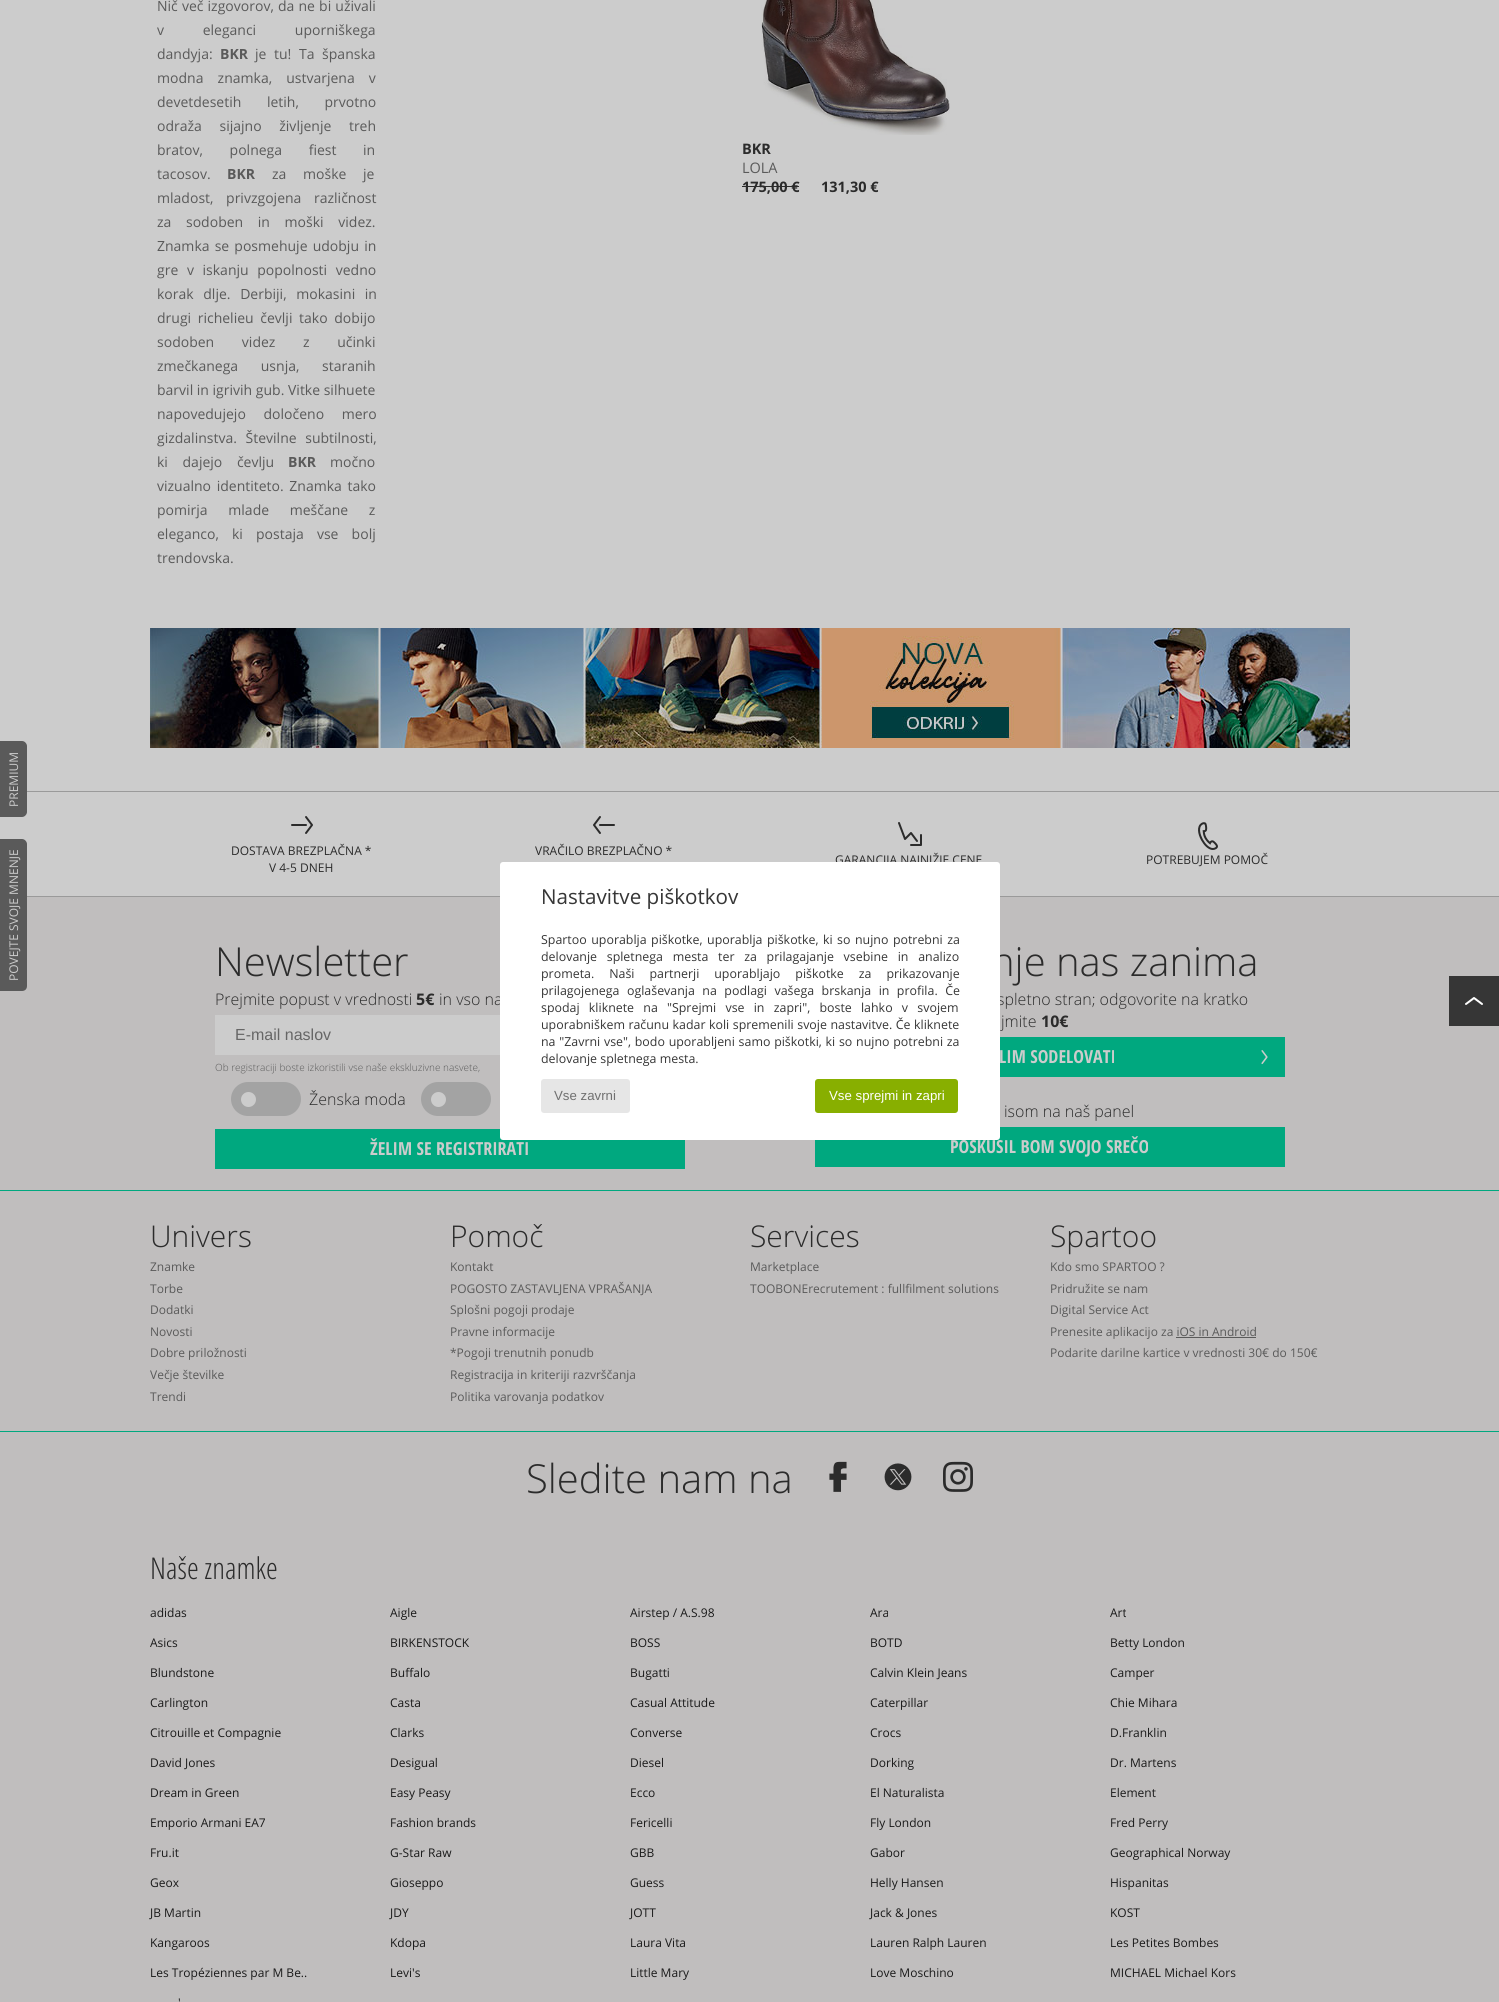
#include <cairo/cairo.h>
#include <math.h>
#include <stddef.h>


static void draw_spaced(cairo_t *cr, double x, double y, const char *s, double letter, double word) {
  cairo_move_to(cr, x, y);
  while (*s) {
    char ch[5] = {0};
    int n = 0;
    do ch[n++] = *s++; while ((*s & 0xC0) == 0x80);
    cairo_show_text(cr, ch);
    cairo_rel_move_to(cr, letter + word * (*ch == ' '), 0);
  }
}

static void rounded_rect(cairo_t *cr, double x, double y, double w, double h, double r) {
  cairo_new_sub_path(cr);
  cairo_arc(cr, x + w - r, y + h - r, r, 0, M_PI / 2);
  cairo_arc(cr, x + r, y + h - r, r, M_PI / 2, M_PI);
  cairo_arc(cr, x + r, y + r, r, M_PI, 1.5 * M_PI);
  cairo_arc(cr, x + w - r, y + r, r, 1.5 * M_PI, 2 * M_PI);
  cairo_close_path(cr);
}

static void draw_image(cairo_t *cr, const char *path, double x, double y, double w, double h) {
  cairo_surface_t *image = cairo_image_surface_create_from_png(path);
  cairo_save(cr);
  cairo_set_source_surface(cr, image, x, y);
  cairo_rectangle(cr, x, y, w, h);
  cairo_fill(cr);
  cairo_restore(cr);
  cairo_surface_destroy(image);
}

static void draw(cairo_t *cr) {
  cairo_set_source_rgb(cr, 204 / 255.0, 204 / 255.0, 204 / 255.0);
  cairo_paint(cr);
  draw_image(cr, "images/1.png", 761, 0, 189, 135);
  cairo_set_source_rgb(cr, 43 / 255.0, 43 / 255.0, 43 / 255.0);
  cairo_rectangle(cr, 742, 186, 57, 1);
  cairo_fill(cr);
  draw_image(cr, "images/2.png", 150, 628, 1200, 120);
  cairo_set_source_rgb(cr, 90 / 255.0, 90 / 255.0, 90 / 255.0);
  cairo_new_path(cr);
  cairo_move_to(cr, 0, 817);
  cairo_line_to(cr, 0, 741);
  cairo_line_to(cr, 22, 741);
  cairo_curve_to(cr, 25, 741, 27, 744, 27, 746);
  cairo_line_to(cr, 27, 812);
  cairo_curve_to(cr, 27, 814, 25, 817, 22, 817);
  cairo_close_path(cr);
  cairo_fill(cr);
  cairo_set_source_rgb(cr, 192 / 255.0, 190 / 255.0, 190 / 255.0);
  cairo_rectangle(cr, 0, 897, 1499, 1105);
  cairo_fill(cr);
  cairo_set_source_rgb(cr, 90 / 255.0, 90 / 255.0, 90 / 255.0);
  cairo_new_path(cr);
  cairo_move_to(cr, 0, 991);
  cairo_line_to(cr, 0, 839);
  cairo_line_to(cr, 22, 839);
  cairo_curve_to(cr, 25, 839, 27, 842, 27, 844);
  cairo_line_to(cr, 27, 986);
  cairo_curve_to(cr, 27, 989, 25, 991, 22, 991);
  cairo_close_path(cr);
  cairo_fill(cr);
  cairo_set_source_rgb(cr, 154 / 255.0, 154 / 255.0, 154 / 255.0);
  cairo_rectangle(cr, 27, 791, 1472, 1);
  cairo_fill(cr);
  cairo_rectangle(cr, 27, 896, 1472, 1);
  cairo_fill(cr);
  draw_image(cr, "images/3.png", 291, 816, 22, 18);
  draw_image(cr, "images/4.png", 593, 816, 22, 18);
  draw_image(cr, "images/5.png", 898, 822, 24, 24);
  draw_image(cr, "images/6.png", 1198, 822, 20, 28);
  cairo_set_source_rgb(cr, 204 / 255.0, 204 / 255.0, 204 / 255.0);
  cairo_rectangle(cr, 215, 1015, 285, 40);
  cairo_fill(cr);
  cairo_set_source_rgb(cr, 163 / 255.0, 163 / 255.0, 163 / 255.0);
  rounded_rect(cr, 231, 1082, 70, 34, 17);
  cairo_fill(cr);
  cairo_set_source_rgb(cr, 204 / 255.0, 204 / 255.0, 204 / 255.0);
  cairo_arc(cr, 248.5, 1099.5, 7.5, 0, 2 * M_PI);
  cairo_fill(cr);
  cairo_set_source_rgb(cr, 163 / 255.0, 163 / 255.0, 163 / 255.0);
  rounded_rect(cr, 421, 1082, 70, 34, 17);
  cairo_fill(cr);
  cairo_set_source_rgb(cr, 204 / 255.0, 204 / 255.0, 204 / 255.0);
  cairo_arc(cr, 438.5, 1099.5, 7.5, 0, 2 * M_PI);
  cairo_fill(cr);
  cairo_set_source_rgb(cr, 0, 168 / 255.0, 127 / 255.0);
  cairo_rectangle(cr, 215, 1129, 470, 40);
  cairo_fill(cr);
  cairo_rectangle(cr, 1000, 1037, 285, 40);
  cairo_fill(cr);
  draw_image(cr, "images/7.png", 1261, 1050, 7, 15);
  cairo_rectangle(cr, 815, 1127, 470, 40);
  cairo_fill(cr);
  cairo_rectangle(cr, 0, 1190, 1499, 1);
  cairo_fill(cr);
  cairo_set_source_rgb(cr, 90 / 255.0, 90 / 255.0, 90 / 255.0);
  cairo_rectangle(cr, 1176, 1337, 80, 1);
  cairo_fill(cr);
  cairo_set_source_rgb(cr, 0, 168 / 255.0, 127 / 255.0);
  cairo_rectangle(cr, 0, 1431, 1499, 1);
  cairo_fill(cr);
  draw_image(cr, "images/8.png", 829, 1461, 18, 31);
  draw_image(cr, "images/9.png", 884, 1463, 28, 28);
  draw_image(cr, "images/10.png", 943, 1461, 30, 31);
  cairo_set_source_rgb(cr, 54 / 255.0, 54 / 255.0, 54 / 255.0);
  cairo_rectangle(cr, 1449, 976, 50, 50);
  cairo_fill(cr);
  draw_image(cr, "images/11.png", 1465, 997, 18, 8);
  cairo_select_font_face(cr, "Open Sans", CAIRO_FONT_SLANT_NORMAL, CAIRO_FONT_WEIGHT_NORMAL);
  cairo_set_font_size(cr, 14);
  cairo_set_source_rgb(cr, 90 / 255.0, 90 / 255.0, 90 / 255.0);
  draw_spaced(cr, 157, 11, "Nič več izgovorov, da ne bi uživali", 0, 0.5);
  draw_spaced(cr, 157, 35, "v eleganci uporniškega", 0, 35);
  cairo_move_to(cr, 157, 59);
  cairo_show_text(cr, "dandyja:");
  cairo_select_font_face(cr, "Open Sans", CAIRO_FONT_SLANT_NORMAL, CAIRO_FONT_WEIGHT_BOLD);
  cairo_move_to(cr, 220, 59);
  cairo_show_text(cr, "BKR");
  cairo_select_font_face(cr, "Open Sans", CAIRO_FONT_SLANT_NORMAL, CAIRO_FONT_WEIGHT_NORMAL);
  draw_spaced(cr, 255, 59, "je tu! Ta španska", 0, 4);
  draw_spaced(cr, 157, 83, "modna znamka, ustvarjena v", 0, 10.5);
  draw_spaced(cr, 157, 107, "devetdesetih letih, prvotno", 0, 22);
  draw_spaced(cr, 157, 131, "odraža sijajno življenje treh", 0, 14);
  draw_spaced(cr, 157, 155, "bratov, polnega fiest in", 0, 23);
  cairo_move_to(cr, 157, 179);
  cairo_show_text(cr, "tacosov.");
  cairo_select_font_face(cr, "Open Sans", CAIRO_FONT_SLANT_NORMAL, CAIRO_FONT_WEIGHT_BOLD);
  cairo_move_to(cr, 227, 179);
  cairo_show_text(cr, "BKR");
  cairo_select_font_face(cr, "Open Sans", CAIRO_FONT_SLANT_NORMAL, CAIRO_FONT_WEIGHT_NORMAL);
  draw_spaced(cr, 272, 179, "za moške je", 0, 13);
  draw_spaced(cr, 157, 203, "mladost, privzgojena različnost", 0, 9);
  draw_spaced(cr, 157, 227, "za sodoben in moški videz.", 0, 11);
  draw_spaced(cr, 157, 251, "Znamka se posmehuje udobju in", 0, 1.5);
  draw_spaced(cr, 157, 275, "gre v iskanju popolnosti vedno", 0, 5);
  draw_spaced(cr, 157, 299, "korak dlje. Derbiji, mokasini in", 0, 6);
  draw_spaced(cr, 157, 323, "drugi richelieu čevlji tako dobijo", 0, 3);
  draw_spaced(cr, 157, 347, "sodoben videz z učinki", 0, 24);
  draw_spaced(cr, 157, 371, "zmečkanega usnja, staranih", 0, 19);
  cairo_move_to(cr, 157, 395);
  cairo_show_text(cr, "barvil in igrivih gub. Vitke silhuete");
  draw_spaced(cr, 157, 419, "napovedujejo določeno mero", 0, 14);
  draw_spaced(cr, 157, 443, "gizdalinstva. Številne subtilnosti,", 0, 5);
  draw_spaced(cr, 157, 467, "ki dajejo čevlju", 0, 11);
  cairo_select_font_face(cr, "Open Sans", CAIRO_FONT_SLANT_NORMAL, CAIRO_FONT_WEIGHT_BOLD);
  cairo_move_to(cr, 288, 467);
  cairo_show_text(cr, "BKR");
  cairo_select_font_face(cr, "Open Sans", CAIRO_FONT_SLANT_NORMAL, CAIRO_FONT_WEIGHT_NORMAL);
  cairo_move_to(cr, 330, 467);
  cairo_show_text(cr, "močno");
  draw_spaced(cr, 157, 491, "vizualno identiteto. Znamka tako", 0, 2);
  draw_spaced(cr, 157, 515, "pomirja mlade meščane z", 0, 17);
  draw_spaced(cr, 157, 539, "eleganco, ki postaja vse bolj", 0, 9.5);
  cairo_move_to(cr, 157, 563);
  cairo_show_text(cr, "trendovska.");
  cairo_select_font_face(cr, "Open Sans", CAIRO_FONT_SLANT_NORMAL, CAIRO_FONT_WEIGHT_BOLD);
  cairo_set_font_size(cr, 14.5);
  cairo_set_source_rgb(cr, 43 / 255.0, 43 / 255.0, 43 / 255.0);
  cairo_move_to(cr, 742, 154);
  cairo_show_text(cr, "BKR");
  cairo_select_font_face(cr, "Open Sans", CAIRO_FONT_SLANT_NORMAL, CAIRO_FONT_WEIGHT_NORMAL);
  cairo_set_source_rgb(cr, 90 / 255.0, 90 / 255.0, 90 / 255.0);
  cairo_move_to(cr, 742, 173);
  cairo_show_text(cr, "LOLA");
  cairo_select_font_face(cr, "Open Sans", CAIRO_FONT_SLANT_NORMAL, CAIRO_FONT_WEIGHT_BOLD);
  cairo_set_source_rgb(cr, 43 / 255.0, 43 / 255.0, 43 / 255.0);
  cairo_move_to(cr, 742, 192);
  cairo_show_text(cr, "175,00 €");
  cairo_move_to(cr, 821, 192);
  cairo_show_text(cr, "131,30 €");
  cairo_select_font_face(cr, "Open Sans", CAIRO_FONT_SLANT_NORMAL, CAIRO_FONT_WEIGHT_NORMAL);
  cairo_set_font_size(cr, 12);
  cairo_set_source_rgb(cr, 204 / 255.0, 204 / 255.0, 204 / 255.0);
  cairo_save(cr);
  cairo_translate(cr, 18, 807);
  cairo_rotate(cr, -90 * M_PI / 180);
  cairo_move_to(cr, 0, 0);
  cairo_show_text(cr, "PREMIUM");
  cairo_restore(cr);
  cairo_save(cr);
  cairo_translate(cr, 18, 981);
  cairo_rotate(cr, -90 * M_PI / 180);
  cairo_move_to(cr, 0, 0);
  cairo_show_text(cr, "POVEJTE SVOJE MNENJE");
  cairo_restore(cr);
  cairo_set_source_rgb(cr, 43 / 255.0, 43 / 255.0, 43 / 255.0);
  cairo_move_to(cr, 231, 855);
  cairo_show_text(cr, "DOSTAVA BREZPLAČNA *");
  cairo_move_to(cr, 269, 872);
  cairo_show_text(cr, "V 4-5 DNEH");
  cairo_move_to(cr, 535, 855);
  cairo_show_text(cr, "VRAČILO BREZPLAČNO *");
  cairo_move_to(cr, 835, 864);
  cairo_show_text(cr, "GARANCIJA NAJNIŽJE CENE");
  cairo_move_to(cr, 1146, 864);
  cairo_show_text(cr, "POTREBUJEM POMOČ");
  cairo_select_font_face(cr, "Open Sans Light", CAIRO_FONT_SLANT_NORMAL, CAIRO_FONT_WEIGHT_NORMAL);
  cairo_set_font_size(cr, 40);
  cairo_move_to(cr, 215, 976);
  cairo_show_text(cr, "Newsletter");
  cairo_set_font_size(cr, 16);
  cairo_move_to(cr, 215, 1005);
  cairo_show_text(cr, "Prejmite popust v vrednosti");
  cairo_select_font_face(cr, "Open Sans", CAIRO_FONT_SLANT_NORMAL, CAIRO_FONT_WEIGHT_BOLD);
  cairo_move_to(cr, 416, 1005);
  cairo_show_text(cr, "5€");
  cairo_select_font_face(cr, "Open Sans Light", CAIRO_FONT_SLANT_NORMAL, CAIRO_FONT_WEIGHT_NORMAL);
  cairo_move_to(cr, 439, 1005);
  cairo_show_text(cr, "in vso na");
  cairo_select_font_face(cr, "Liberation Sans", CAIRO_FONT_SLANT_NORMAL, CAIRO_FONT_WEIGHT_NORMAL);
  cairo_set_source_rgb(cr, 102 / 255.0, 102 / 255.0, 102 / 255.0);
  cairo_move_to(cr, 235, 1040);
  cairo_show_text(cr, "E-mail naslov");
  cairo_select_font_face(cr, "Open Sans Light", CAIRO_FONT_SLANT_NORMAL, CAIRO_FONT_WEIGHT_NORMAL);
  cairo_set_font_size(cr, 10);
  cairo_set_source_rgb(cr, 90 / 255.0, 90 / 255.0, 90 / 255.0);
  cairo_move_to(cr, 215, 1071);
  cairo_show_text(cr, "Ob registraciji boste izkoristili vse naše ekskluzivne nasvete,");
  cairo_set_font_size(cr, 16);
  cairo_set_source_rgb(cr, 43 / 255.0, 43 / 255.0, 43 / 255.0);
  cairo_move_to(cr, 309, 1105);
  cairo_show_text(cr, "Ženska moda");
  cairo_select_font_face(cr, "Open Sans Condensed", CAIRO_FONT_SLANT_NORMAL, CAIRO_FONT_WEIGHT_BOLD);
  cairo_set_font_size(cr, 18);
  cairo_set_source_rgb(cr, 204 / 255.0, 204 / 255.0, 204 / 255.0);
  cairo_move_to(cr, 370, 1155);
  cairo_show_text(cr, "ŽELIM SE REGISTRIRATI");
  cairo_select_font_face(cr, "Open Sans Light", CAIRO_FONT_SLANT_NORMAL, CAIRO_FONT_WEIGHT_NORMAL);
  cairo_set_font_size(cr, 40);
  cairo_set_source_rgb(cr, 43 / 255.0, 43 / 255.0, 43 / 255.0);
  cairo_move_to(cr, 991, 976);
  cairo_show_text(cr, "nje nas zanima");
  cairo_set_font_size(cr, 16);
  cairo_move_to(cr, 997, 1005);
  cairo_show_text(cr, "spletno stran; odgovorite na kratko");
  cairo_move_to(cr, 1001, 1027);
  cairo_show_text(cr, "jmite");
  cairo_select_font_face(cr, "Open Sans", CAIRO_FONT_SLANT_NORMAL, CAIRO_FONT_WEIGHT_BOLD);
  cairo_move_to(cr, 1041, 1027);
  cairo_show_text(cr, "10€");
  cairo_select_font_face(cr, "Open Sans Condensed", CAIRO_FONT_SLANT_NORMAL, CAIRO_FONT_WEIGHT_BOLD);
  cairo_set_font_size(cr, 18);
  cairo_set_source_rgb(cr, 204 / 255.0, 204 / 255.0, 204 / 255.0);
  cairo_move_to(cr, 999, 1063);
  cairo_show_text(cr, "LIM SODELOVATI");
  cairo_select_font_face(cr, "Open Sans Light", CAIRO_FONT_SLANT_NORMAL, CAIRO_FONT_WEIGHT_NORMAL);
  cairo_set_font_size(cr, 16);
  cairo_set_source_rgb(cr, 43 / 255.0, 43 / 255.0, 43 / 255.0);
  cairo_move_to(cr, 1004, 1117);
  cairo_show_text(cr, "isom na naš panel");
  cairo_select_font_face(cr, "Open Sans Condensed", CAIRO_FONT_SLANT_NORMAL, CAIRO_FONT_WEIGHT_BOLD);
  cairo_set_font_size(cr, 18);
  cairo_set_source_rgb(cr, 204 / 255.0, 204 / 255.0, 204 / 255.0);
  cairo_move_to(cr, 950, 1153);
  cairo_show_text(cr, "POSKUSIL BOM SVOJO SREČO");
  cairo_select_font_face(cr, "Open Sans Light", CAIRO_FONT_SLANT_NORMAL, CAIRO_FONT_WEIGHT_NORMAL);
  cairo_set_font_size(cr, 30);
  cairo_set_source_rgb(cr, 43 / 255.0, 43 / 255.0, 43 / 255.0);
  cairo_move_to(cr, 150, 1247);
  cairo_show_text(cr, "Univers");
  cairo_select_font_face(cr, "Open Sans", CAIRO_FONT_SLANT_NORMAL, CAIRO_FONT_WEIGHT_NORMAL);
  cairo_set_font_size(cr, 12);
  cairo_set_source_rgb(cr, 90 / 255.0, 90 / 255.0, 90 / 255.0);
  cairo_move_to(cr, 150, 1271);
  cairo_show_text(cr, "Znamke");
  cairo_move_to(cr, 150, 1293);
  cairo_show_text(cr, "Torbe");
  cairo_move_to(cr, 150, 1314);
  cairo_show_text(cr, "Dodatki");
  cairo_move_to(cr, 150, 1336);
  cairo_show_text(cr, "Novosti");
  cairo_move_to(cr, 150, 1357);
  cairo_show_text(cr, "Dobre priložnosti");
  cairo_move_to(cr, 150, 1379);
  cairo_show_text(cr, "Večje številke");
  cairo_move_to(cr, 150, 1401);
  cairo_show_text(cr, "Trendi");
  cairo_select_font_face(cr, "Open Sans Light", CAIRO_FONT_SLANT_NORMAL, CAIRO_FONT_WEIGHT_NORMAL);
  cairo_set_font_size(cr, 30);
  cairo_set_source_rgb(cr, 43 / 255.0, 43 / 255.0, 43 / 255.0);
  cairo_move_to(cr, 450, 1247);
  cairo_show_text(cr, "Pomoč");
  cairo_select_font_face(cr, "Open Sans", CAIRO_FONT_SLANT_NORMAL, CAIRO_FONT_WEIGHT_NORMAL);
  cairo_set_font_size(cr, 12);
  cairo_set_source_rgb(cr, 90 / 255.0, 90 / 255.0, 90 / 255.0);
  cairo_move_to(cr, 450, 1271);
  cairo_show_text(cr, "Kontakt");
  cairo_move_to(cr, 450, 1293);
  cairo_show_text(cr, "POGOSTO ZASTAVLJENA VPRAŠANJA");
  cairo_move_to(cr, 450, 1314);
  cairo_show_text(cr, "Splošni pogoji prodaje");
  cairo_move_to(cr, 450, 1336);
  cairo_show_text(cr, "Pravne informacije");
  cairo_move_to(cr, 450, 1357);
  cairo_show_text(cr, "*Pogoji trenutnih ponudb");
  cairo_move_to(cr, 450, 1379);
  cairo_show_text(cr, "Registracija in kriteriji razvrščanja");
  cairo_move_to(cr, 450, 1401);
  cairo_show_text(cr, "Politika varovanja podatkov");
  cairo_select_font_face(cr, "Open Sans Light", CAIRO_FONT_SLANT_NORMAL, CAIRO_FONT_WEIGHT_NORMAL);
  cairo_set_font_size(cr, 30);
  cairo_set_source_rgb(cr, 43 / 255.0, 43 / 255.0, 43 / 255.0);
  cairo_move_to(cr, 750, 1247);
  cairo_show_text(cr, "Services");
  cairo_select_font_face(cr, "Open Sans", CAIRO_FONT_SLANT_NORMAL, CAIRO_FONT_WEIGHT_NORMAL);
  cairo_set_font_size(cr, 12);
  cairo_set_source_rgb(cr, 90 / 255.0, 90 / 255.0, 90 / 255.0);
  cairo_move_to(cr, 750, 1271);
  cairo_show_text(cr, "Marketplace");
  cairo_move_to(cr, 750, 1293);
  cairo_show_text(cr, "TOOBONErecrutement : fullfilment solutions");
  cairo_select_font_face(cr, "Open Sans Light", CAIRO_FONT_SLANT_NORMAL, CAIRO_FONT_WEIGHT_NORMAL);
  cairo_set_font_size(cr, 30);
  cairo_set_source_rgb(cr, 43 / 255.0, 43 / 255.0, 43 / 255.0);
  cairo_move_to(cr, 1050, 1247);
  cairo_show_text(cr, "Spartoo");
  cairo_select_font_face(cr, "Open Sans", CAIRO_FONT_SLANT_NORMAL, CAIRO_FONT_WEIGHT_NORMAL);
  cairo_set_font_size(cr, 12);
  cairo_set_source_rgb(cr, 90 / 255.0, 90 / 255.0, 90 / 255.0);
  cairo_move_to(cr, 1050, 1271);
  cairo_show_text(cr, "Kdo smo SPARTOO ?");
  cairo_move_to(cr, 1050, 1293);
  cairo_show_text(cr, "Pridružite se nam");
  cairo_move_to(cr, 1050, 1314);
  cairo_show_text(cr, "Digital Service Act");
  cairo_move_to(cr, 1050, 1336);
  cairo_show_text(cr, "Prenesite aplikacijo za iOS in Android");
  cairo_move_to(cr, 1050, 1357);
  cairo_show_text(cr, "Podarite darilne kartice v vrednosti 30€ do 150€");
  cairo_select_font_face(cr, "Open Sans Light", CAIRO_FONT_SLANT_NORMAL, CAIRO_FONT_WEIGHT_NORMAL);
  cairo_set_font_size(cr, 40);
  cairo_set_source_rgb(cr, 43 / 255.0, 43 / 255.0, 43 / 255.0);
  cairo_move_to(cr, 526, 1493);
  cairo_show_text(cr, "Sledite nam na");
  cairo_select_font_face(cr, "Open Sans Condensed Light", CAIRO_FONT_SLANT_NORMAL, CAIRO_FONT_WEIGHT_NORMAL);
  cairo_set_font_size(cr, 30);
  cairo_move_to(cr, 150, 1579);
  cairo_show_text(cr, "Naše znamke");
  cairo_select_font_face(cr, "Open Sans", CAIRO_FONT_SLANT_NORMAL, CAIRO_FONT_WEIGHT_NORMAL);
  cairo_set_font_size(cr, 12);
  cairo_set_source_rgb(cr, 26 / 255.0, 26 / 255.0, 26 / 255.0);
  cairo_move_to(cr, 150, 1617);
  cairo_show_text(cr, "adidas");
  cairo_move_to(cr, 390, 1617);
  cairo_show_text(cr, "Aigle");
  cairo_move_to(cr, 630, 1617);
  cairo_show_text(cr, "Airstep / A.S.98");
  cairo_move_to(cr, 870, 1617);
  cairo_show_text(cr, "Ara");
  cairo_move_to(cr, 1110, 1617);
  cairo_show_text(cr, "Art");
  cairo_move_to(cr, 150, 1647);
  cairo_show_text(cr, "Asics");
  cairo_move_to(cr, 390, 1647);
  cairo_show_text(cr, "BIRKENSTOCK");
  cairo_move_to(cr, 630, 1647);
  cairo_show_text(cr, "BOSS");
  cairo_move_to(cr, 870, 1647);
  cairo_show_text(cr, "BOTD");
  cairo_move_to(cr, 1110, 1647);
  cairo_show_text(cr, "Betty London");
  cairo_move_to(cr, 150, 1677);
  cairo_show_text(cr, "Blundstone");
  cairo_move_to(cr, 390, 1677);
  cairo_show_text(cr, "Buffalo");
  cairo_move_to(cr, 630, 1677);
  cairo_show_text(cr, "Bugatti");
  cairo_move_to(cr, 870, 1677);
  cairo_show_text(cr, "Calvin Klein Jeans");
  cairo_move_to(cr, 1110, 1677);
  cairo_show_text(cr, "Camper");
  cairo_move_to(cr, 150, 1707);
  cairo_show_text(cr, "Carlington");
  cairo_move_to(cr, 390, 1707);
  cairo_show_text(cr, "Casta");
  cairo_move_to(cr, 630, 1707);
  cairo_show_text(cr, "Casual Attitude");
  cairo_move_to(cr, 870, 1707);
  cairo_show_text(cr, "Caterpillar");
  cairo_move_to(cr, 1110, 1707);
  cairo_show_text(cr, "Chie Mihara");
  cairo_move_to(cr, 150, 1737);
  cairo_show_text(cr, "Citrouille et Compagnie");
  cairo_move_to(cr, 390, 1737);
  cairo_show_text(cr, "Clarks");
  cairo_move_to(cr, 630, 1737);
  cairo_show_text(cr, "Converse");
  cairo_move_to(cr, 870, 1737);
  cairo_show_text(cr, "Crocs");
  cairo_move_to(cr, 1110, 1737);
  cairo_show_text(cr, "D.Franklin");
  cairo_move_to(cr, 150, 1767);
  cairo_show_text(cr, "David Jones");
  cairo_move_to(cr, 390, 1767);
  cairo_show_text(cr, "Desigual");
  cairo_move_to(cr, 630, 1767);
  cairo_show_text(cr, "Diesel");
  cairo_move_to(cr, 870, 1767);
  cairo_show_text(cr, "Dorking");
  cairo_move_to(cr, 1110, 1767);
  cairo_show_text(cr, "Dr. Martens");
  cairo_move_to(cr, 150, 1797);
  cairo_show_text(cr, "Dream in Green");
  cairo_move_to(cr, 390, 1797);
  cairo_show_text(cr, "Easy Peasy");
  cairo_move_to(cr, 630, 1797);
  cairo_show_text(cr, "Ecco");
  cairo_move_to(cr, 870, 1797);
  cairo_show_text(cr, "El Naturalista");
  cairo_move_to(cr, 1110, 1797);
  cairo_show_text(cr, "Element");
  cairo_move_to(cr, 150, 1827);
  cairo_show_text(cr, "Emporio Armani EA7");
  cairo_move_to(cr, 390, 1827);
  cairo_show_text(cr, "Fashion brands");
  cairo_move_to(cr, 630, 1827);
  cairo_show_text(cr, "Fericelli");
  cairo_move_to(cr, 870, 1827);
  cairo_show_text(cr, "Fly London");
  cairo_move_to(cr, 1110, 1827);
  cairo_show_text(cr, "Fred Perry");
  cairo_move_to(cr, 150, 1857);
  cairo_show_text(cr, "Fru.it");
  cairo_move_to(cr, 390, 1857);
  cairo_show_text(cr, "G-Star Raw");
  cairo_move_to(cr, 630, 1857);
  cairo_show_text(cr, "GBB");
  cairo_move_to(cr, 870, 1857);
  cairo_show_text(cr, "Gabor");
  cairo_move_to(cr, 1110, 1857);
  cairo_show_text(cr, "Geographical Norway");
  cairo_move_to(cr, 150, 1887);
  cairo_show_text(cr, "Geox");
  cairo_move_to(cr, 390, 1887);
  cairo_show_text(cr, "Gioseppo");
  cairo_move_to(cr, 630, 1887);
  cairo_show_text(cr, "Guess");
  cairo_move_to(cr, 870, 1887);
  cairo_show_text(cr, "Helly Hansen");
  cairo_move_to(cr, 1110, 1887);
  cairo_show_text(cr, "Hispanitas");
  cairo_move_to(cr, 150, 1917);
  cairo_show_text(cr, "JB Martin");
  cairo_move_to(cr, 390, 1917);
  cairo_show_text(cr, "JDY");
  cairo_move_to(cr, 630, 1917);
  cairo_show_text(cr, "JOTT");
  cairo_move_to(cr, 870, 1917);
  cairo_show_text(cr, "Jack & Jones");
  cairo_move_to(cr, 1110, 1917);
  cairo_show_text(cr, "KOST");
  cairo_move_to(cr, 150, 1947);
  cairo_show_text(cr, "Kangaroos");
  cairo_move_to(cr, 390, 1947);
  cairo_show_text(cr, "Kdopa");
  cairo_move_to(cr, 630, 1947);
  cairo_show_text(cr, "Laura Vita");
  cairo_move_to(cr, 870, 1947);
  cairo_show_text(cr, "Lauren Ralph Lauren");
  cairo_move_to(cr, 1110, 1947);
  cairo_show_text(cr, "Les Petites Bombes");
  cairo_move_to(cr, 150, 1977);
  cairo_show_text(cr, "Les Tropéziennes par M Be..");
  cairo_move_to(cr, 390, 1977);
  cairo_show_text(cr, "Levi's");
  cairo_move_to(cr, 630, 1977);
  cairo_show_text(cr, "Little Mary");
  cairo_move_to(cr, 870, 1977);
  cairo_show_text(cr, "Love Moschino");
  cairo_move_to(cr, 1110, 1977);
  cairo_show_text(cr, "MICHAEL Michael Kors");
  cairo_move_to(cr, 178, 2007);
  cairo_show_text(cr, "'");
  cairo_set_source_rgb(cr, 1, 1, 1);
  rounded_rect(cr, 500, 862, 500, 278, 3);
  cairo_fill(cr);
  cairo_set_font_size(cr, 20.6);
  cairo_set_source_rgb(cr, 54 / 255.0, 54 / 255.0, 54 / 255.0);
  cairo_move_to(cr, 541, 904);
  cairo_show_text(cr, "Nastavitve piškotkov");
  cairo_set_font_size(cr, 12.4);
  draw_spaced(cr, 541, 944, "Spartoo uporablja piškotke, uporablja piškotke, ki so nujno potrebni za", 0, 1.25);
  draw_spaced(cr, 541, 961, "delovanje spletnega mesta ter za prilagajanje vsebine in analizo", 0, 6.5);
  draw_spaced(cr, 541, 978, "prometa. Naši partnerji uporabljajo piškotke za prikazovanje", 0, 11.75);
  draw_spaced(cr, 541, 995, "prilagojenega oglaševanja na podlagi vašega brskanja in profila. Če", 0, 4.25);
  draw_spaced(cr, 541, 1012, "spodaj kliknete na \"Sprejmi vse in zapri\", boste lahko v svojem", 0, 6);
  draw_spaced(cr, 541, 1029, "uporabniškem računu kadar koli spremenili svoje nastavitve. Če kliknete", 0, 0.25);
  draw_spaced(cr, 541, 1046, "na \"Zavrni vse\", bodo uporabljeni samo piškotki, ki so nujno potrebni za", 0, 0.5);
  cairo_move_to(cr, 541, 1063);
  cairo_show_text(cr, "delovanje spletnega mesta.");
  cairo_set_source_rgb(cr, 230 / 255.0, 230 / 255.0, 230 / 255.0);
  rounded_rect(cr, 541, 1079, 89, 34, 3);
  cairo_fill(cr);
  cairo_select_font_face(cr, "Liberation Sans", CAIRO_FONT_SLANT_NORMAL, CAIRO_FONT_WEIGHT_NORMAL);
  cairo_set_font_size(cr, 13.25);
  cairo_set_source_rgb(cr, 112 / 255.0, 112 / 255.0, 112 / 255.0);
  cairo_move_to(cr, 554, 1100);
  cairo_show_text(cr, "Vse zavrni");
  cairo_set_source_rgb(cr, 136 / 255.0, 175 / 255.0, 0);
  rounded_rect(cr, 815, 1079, 143, 34, 3);
  cairo_fill(cr);
  cairo_set_source_rgb(cr, 1, 1, 1);
  cairo_move_to(cr, 829, 1100);
  cairo_show_text(cr, "Vse sprejmi in zapri");
}

int main(void) {
  cairo_surface_t *surface = cairo_image_surface_create(CAIRO_FORMAT_RGB24, 1499, 2002);
  cairo_t *cr = cairo_create(surface);
  cairo_font_options_t *options = cairo_font_options_create();
  cairo_font_options_set_hint_metrics(options, CAIRO_HINT_METRICS_OFF);
  cairo_font_options_set_hint_style(options, CAIRO_HINT_STYLE_NONE);
  cairo_set_font_options(cr, options);
  cairo_set_miter_limit(cr, 4);
  draw(cr);
  cairo_surface_write_to_png(surface, "out.png");
  cairo_font_options_destroy(options);
  cairo_destroy(cr);
  cairo_surface_destroy(surface);
  return 0;
}
